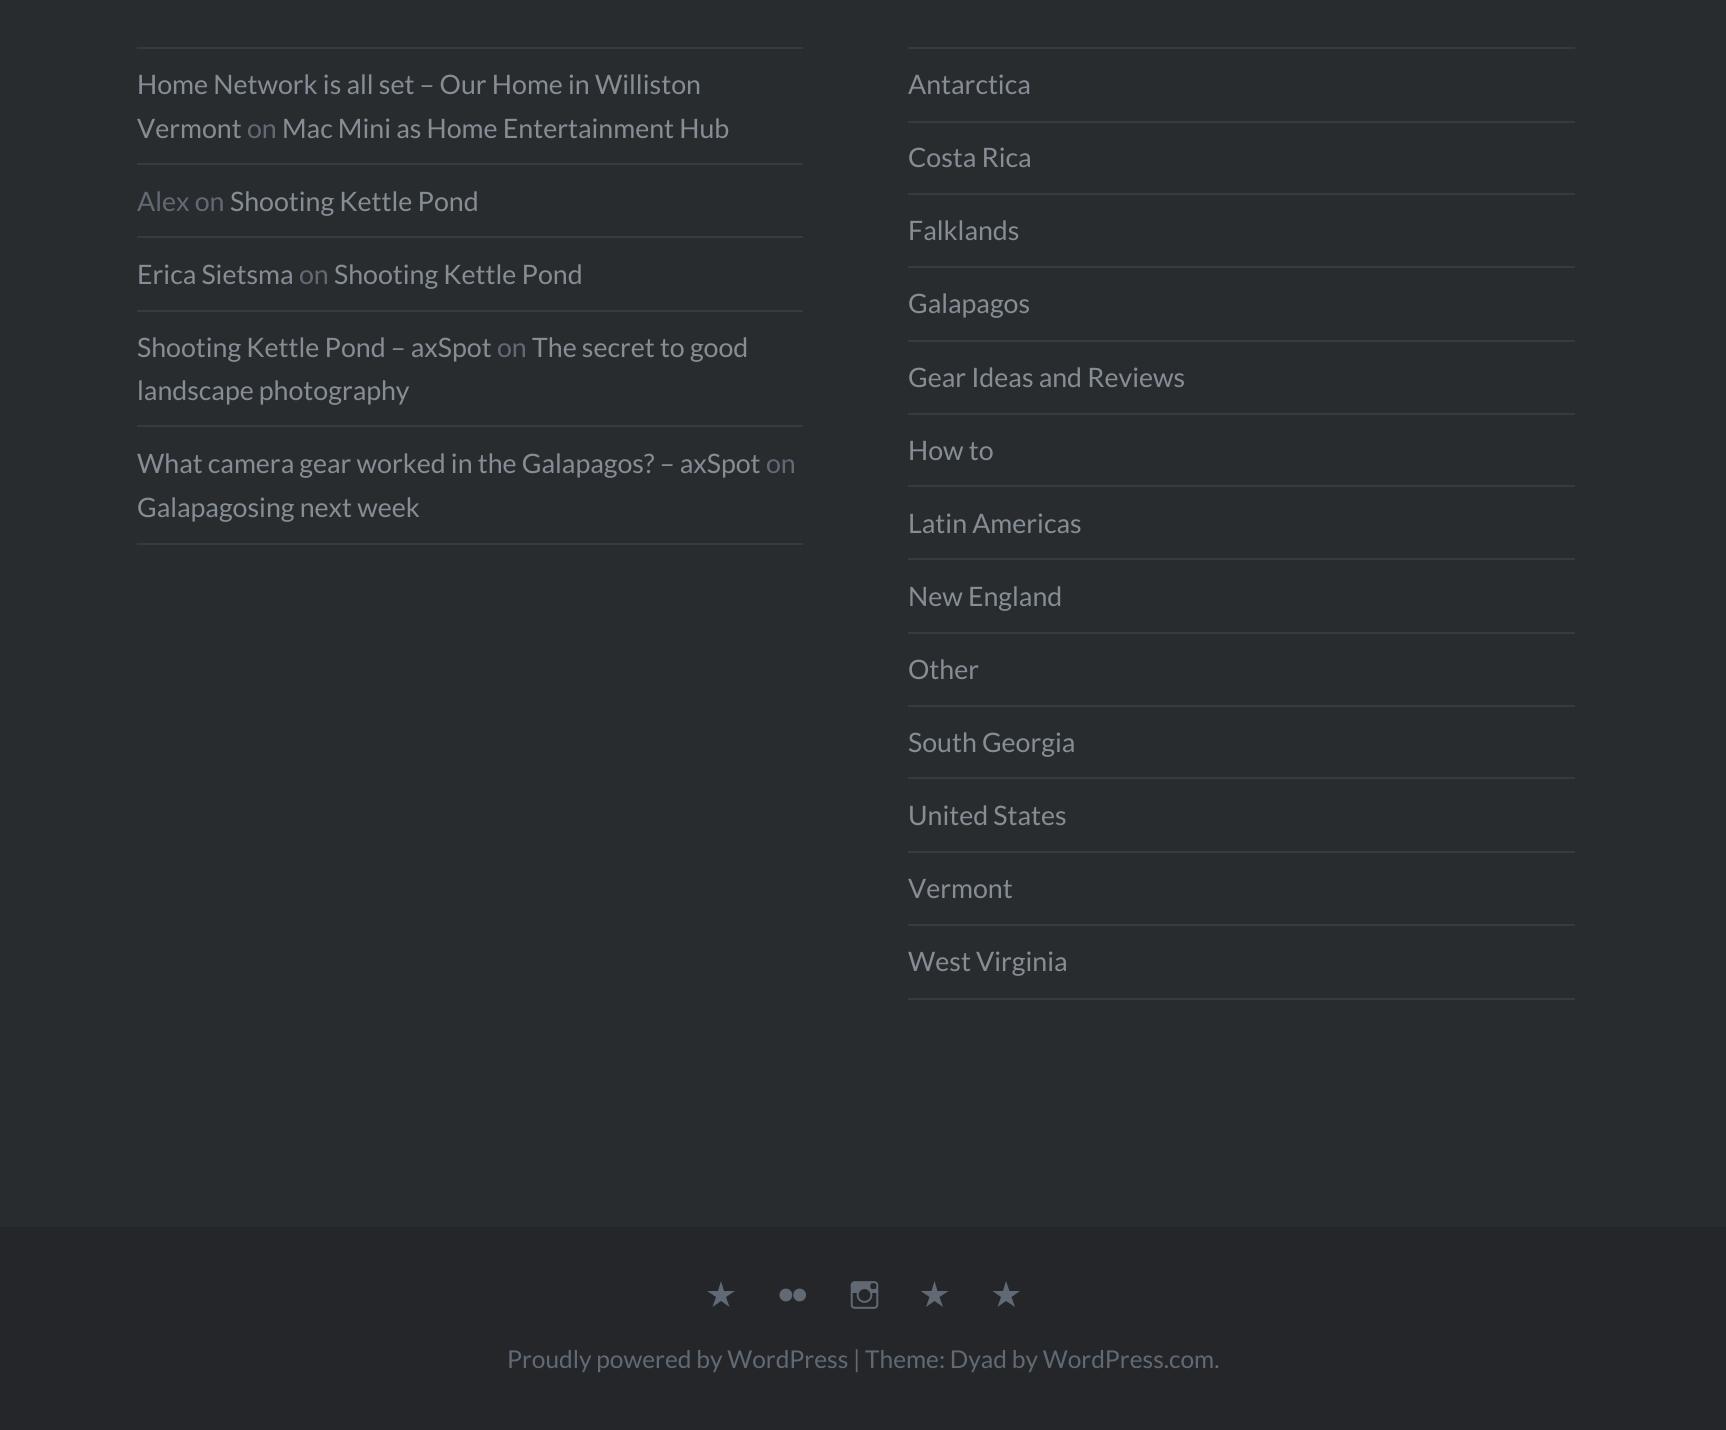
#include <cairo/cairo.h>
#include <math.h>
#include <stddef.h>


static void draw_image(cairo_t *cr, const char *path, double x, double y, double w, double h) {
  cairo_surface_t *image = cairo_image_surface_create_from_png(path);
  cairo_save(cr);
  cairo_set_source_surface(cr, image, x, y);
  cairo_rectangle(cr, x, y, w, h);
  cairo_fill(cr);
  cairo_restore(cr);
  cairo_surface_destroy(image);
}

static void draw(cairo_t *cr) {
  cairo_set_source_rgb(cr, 41 / 255.0, 44 / 255.0, 47 / 255.0);
  cairo_paint(cr);
  cairo_set_source_rgb(cr, 54 / 255.0, 59 / 255.0, 64 / 255.0);
  cairo_rectangle(cr, 137, 47, 666, 2);
  cairo_fill(cr);
  cairo_rectangle(cr, 137, 163, 666, 2);
  cairo_fill(cr);
  cairo_rectangle(cr, 137, 236, 666, 2);
  cairo_fill(cr);
  cairo_rectangle(cr, 137, 310, 666, 2);
  cairo_fill(cr);
  cairo_rectangle(cr, 137, 425, 666, 2);
  cairo_fill(cr);
  cairo_rectangle(cr, 137, 543, 666, 2);
  cairo_fill(cr);
  cairo_rectangle(cr, 908, 47, 667, 2);
  cairo_fill(cr);
  cairo_rectangle(cr, 908, 121, 667, 2);
  cairo_fill(cr);
  cairo_rectangle(cr, 908, 193, 667, 2);
  cairo_fill(cr);
  cairo_rectangle(cr, 908, 266, 667, 2);
  cairo_fill(cr);
  cairo_rectangle(cr, 908, 340, 667, 2);
  cairo_fill(cr);
  cairo_rectangle(cr, 908, 413, 667, 2);
  cairo_fill(cr);
  cairo_rectangle(cr, 908, 485, 667, 2);
  cairo_fill(cr);
  cairo_rectangle(cr, 908, 558, 667, 2);
  cairo_fill(cr);
  cairo_rectangle(cr, 908, 632, 667, 2);
  cairo_fill(cr);
  cairo_rectangle(cr, 908, 705, 667, 2);
  cairo_fill(cr);
  cairo_rectangle(cr, 908, 777, 667, 2);
  cairo_fill(cr);
  cairo_rectangle(cr, 908, 851, 667, 2);
  cairo_fill(cr);
  cairo_rectangle(cr, 908, 924, 667, 2);
  cairo_fill(cr);
  cairo_rectangle(cr, 908, 998, 667, 2);
  cairo_fill(cr);
  cairo_set_source_rgb(cr, 36 / 255.0, 38 / 255.0, 41 / 255.0);
  cairo_rectangle(cr, 0, 1227, 1726, 203);
  cairo_fill(cr);
  cairo_set_source_rgb(cr, 97 / 255.0, 106 / 255.0, 116 / 255.0);
  cairo_new_path(cr);
  cairo_move_to(cr, 735, 1291);
  cairo_line_to(cr, 726, 1297);
  cairo_line_to(cr, 729.5, 1307);
  cairo_line_to(cr, 721, 1301);
  cairo_line_to(cr, 712.5, 1307);
  cairo_line_to(cr, 716, 1297);
  cairo_line_to(cr, 707, 1291);
  cairo_line_to(cr, 718, 1291);
  cairo_line_to(cr, 721, 1281);
  cairo_line_to(cr, 724, 1291);
  cairo_close_path(cr);
  cairo_fill(cr);
  draw_image(cr, "images/1.png", 779, 1288, 27, 14);
  draw_image(cr, "images/2.png", 850, 1281, 29, 28);
  cairo_new_path(cr);
  cairo_move_to(cr, 948.5, 1291);
  cairo_line_to(cr, 939.5, 1297);
  cairo_line_to(cr, 943, 1307);
  cairo_line_to(cr, 934.5, 1301);
  cairo_line_to(cr, 926, 1307);
  cairo_line_to(cr, 929.5, 1297);
  cairo_line_to(cr, 920.5, 1291);
  cairo_line_to(cr, 931.5, 1291);
  cairo_line_to(cr, 934.5, 1281);
  cairo_line_to(cr, 937.5, 1291);
  cairo_close_path(cr);
  cairo_fill(cr);
  cairo_new_path(cr);
  cairo_move_to(cr, 1020, 1291);
  cairo_line_to(cr, 1011.5, 1297);
  cairo_line_to(cr, 1015, 1307);
  cairo_line_to(cr, 1006, 1301);
  cairo_line_to(cr, 997.5, 1307);
  cairo_line_to(cr, 1001, 1297);
  cairo_line_to(cr, 992.5, 1291);
  cairo_line_to(cr, 1003, 1291);
  cairo_line_to(cr, 1006, 1281);
  cairo_line_to(cr, 1009.5, 1291);
  cairo_close_path(cr);
  cairo_fill(cr);
  cairo_select_font_face(cr, "Lato", CAIRO_FONT_SLANT_NORMAL, CAIRO_FONT_WEIGHT_NORMAL);
  cairo_set_font_size(cr, 26.75);
  cairo_set_source_rgb(cr, 133 / 255.0, 141 / 255.0, 149 / 255.0);
  cairo_move_to(cr, 137, 94);
  cairo_show_text(cr, "Home Network is all set – Our Home in Williston");
  cairo_move_to(cr, 137, 138);
  cairo_show_text(cr, "Vermont");
  cairo_set_source_rgb(cr, 97 / 255.0, 106 / 255.0, 116 / 255.0);
  cairo_move_to(cr, 247, 138);
  cairo_show_text(cr, "on");
  cairo_set_source_rgb(cr, 133 / 255.0, 141 / 255.0, 149 / 255.0);
  cairo_move_to(cr, 282, 138);
  cairo_show_text(cr, "Mac Mini as Home Entertainment Hub");
  cairo_set_source_rgb(cr, 97 / 255.0, 106 / 255.0, 116 / 255.0);
  cairo_move_to(cr, 137, 211);
  cairo_show_text(cr, "Alex on");
  cairo_set_source_rgb(cr, 133 / 255.0, 141 / 255.0, 149 / 255.0);
  cairo_move_to(cr, 230, 211);
  cairo_show_text(cr, "Shooting Kettle Pond");
  cairo_move_to(cr, 137, 284);
  cairo_show_text(cr, "Erica Sietsma");
  cairo_set_source_rgb(cr, 97 / 255.0, 106 / 255.0, 116 / 255.0);
  cairo_move_to(cr, 299, 284);
  cairo_show_text(cr, "on");
  cairo_set_source_rgb(cr, 133 / 255.0, 141 / 255.0, 149 / 255.0);
  cairo_move_to(cr, 334, 284);
  cairo_show_text(cr, "Shooting Kettle Pond");
  cairo_move_to(cr, 137, 357);
  cairo_show_text(cr, "Shooting Kettle Pond – axSpot");
  cairo_set_source_rgb(cr, 97 / 255.0, 106 / 255.0, 116 / 255.0);
  cairo_move_to(cr, 497, 357);
  cairo_show_text(cr, "on");
  cairo_set_source_rgb(cr, 133 / 255.0, 141 / 255.0, 149 / 255.0);
  cairo_move_to(cr, 532, 357);
  cairo_show_text(cr, "The secret to good");
  cairo_move_to(cr, 137, 400);
  cairo_show_text(cr, "landscape photography");
  cairo_move_to(cr, 137, 473);
  cairo_show_text(cr, "What camera gear worked in the Galapagos? – axSpot");
  cairo_set_source_rgb(cr, 97 / 255.0, 106 / 255.0, 116 / 255.0);
  cairo_move_to(cr, 766, 473);
  cairo_show_text(cr, "on");
  cairo_set_source_rgb(cr, 133 / 255.0, 141 / 255.0, 149 / 255.0);
  cairo_move_to(cr, 137, 517);
  cairo_show_text(cr, "Galapagosing next week");
  cairo_move_to(cr, 908, 94);
  cairo_show_text(cr, "Antarctica");
  cairo_move_to(cr, 908, 167);
  cairo_show_text(cr, "Costa Rica");
  cairo_move_to(cr, 908, 240);
  cairo_show_text(cr, "Falklands");
  cairo_move_to(cr, 908, 313);
  cairo_show_text(cr, "Galapagos");
  cairo_move_to(cr, 908, 387);
  cairo_show_text(cr, "Gear Ideas and Reviews");
  cairo_move_to(cr, 908, 460);
  cairo_show_text(cr, "How to");
  cairo_move_to(cr, 908, 533);
  cairo_show_text(cr, "Latin Americas");
  cairo_move_to(cr, 908, 606);
  cairo_show_text(cr, "New England");
  cairo_move_to(cr, 908, 679);
  cairo_show_text(cr, "Other");
  cairo_move_to(cr, 908, 752);
  cairo_show_text(cr, "South Georgia");
  cairo_move_to(cr, 908, 825);
  cairo_show_text(cr, "United States");
  cairo_move_to(cr, 908, 898);
  cairo_show_text(cr, "Vermont");
  cairo_move_to(cr, 908, 971);
  cairo_show_text(cr, "West Virginia");
  cairo_set_font_size(cr, 24.5);
  cairo_set_source_rgb(cr, 97 / 255.0, 106 / 255.0, 116 / 255.0);
  cairo_move_to(cr, 507, 1368);
  cairo_show_text(cr, "Proudly powered by WordPress | Theme: Dyad by WordPress.com.");
}

int main(void) {
  cairo_surface_t *surface = cairo_image_surface_create(CAIRO_FORMAT_RGB24, 1726, 1430);
  cairo_t *cr = cairo_create(surface);
  cairo_font_options_t *options = cairo_font_options_create();
  cairo_font_options_set_hint_metrics(options, CAIRO_HINT_METRICS_OFF);
  cairo_font_options_set_hint_style(options, CAIRO_HINT_STYLE_NONE);
  cairo_set_font_options(cr, options);
  cairo_set_miter_limit(cr, 4);
  draw(cr);
  cairo_surface_write_to_png(surface, "out.png");
  cairo_font_options_destroy(options);
  cairo_destroy(cr);
  cairo_surface_destroy(surface);
  return 0;
}
